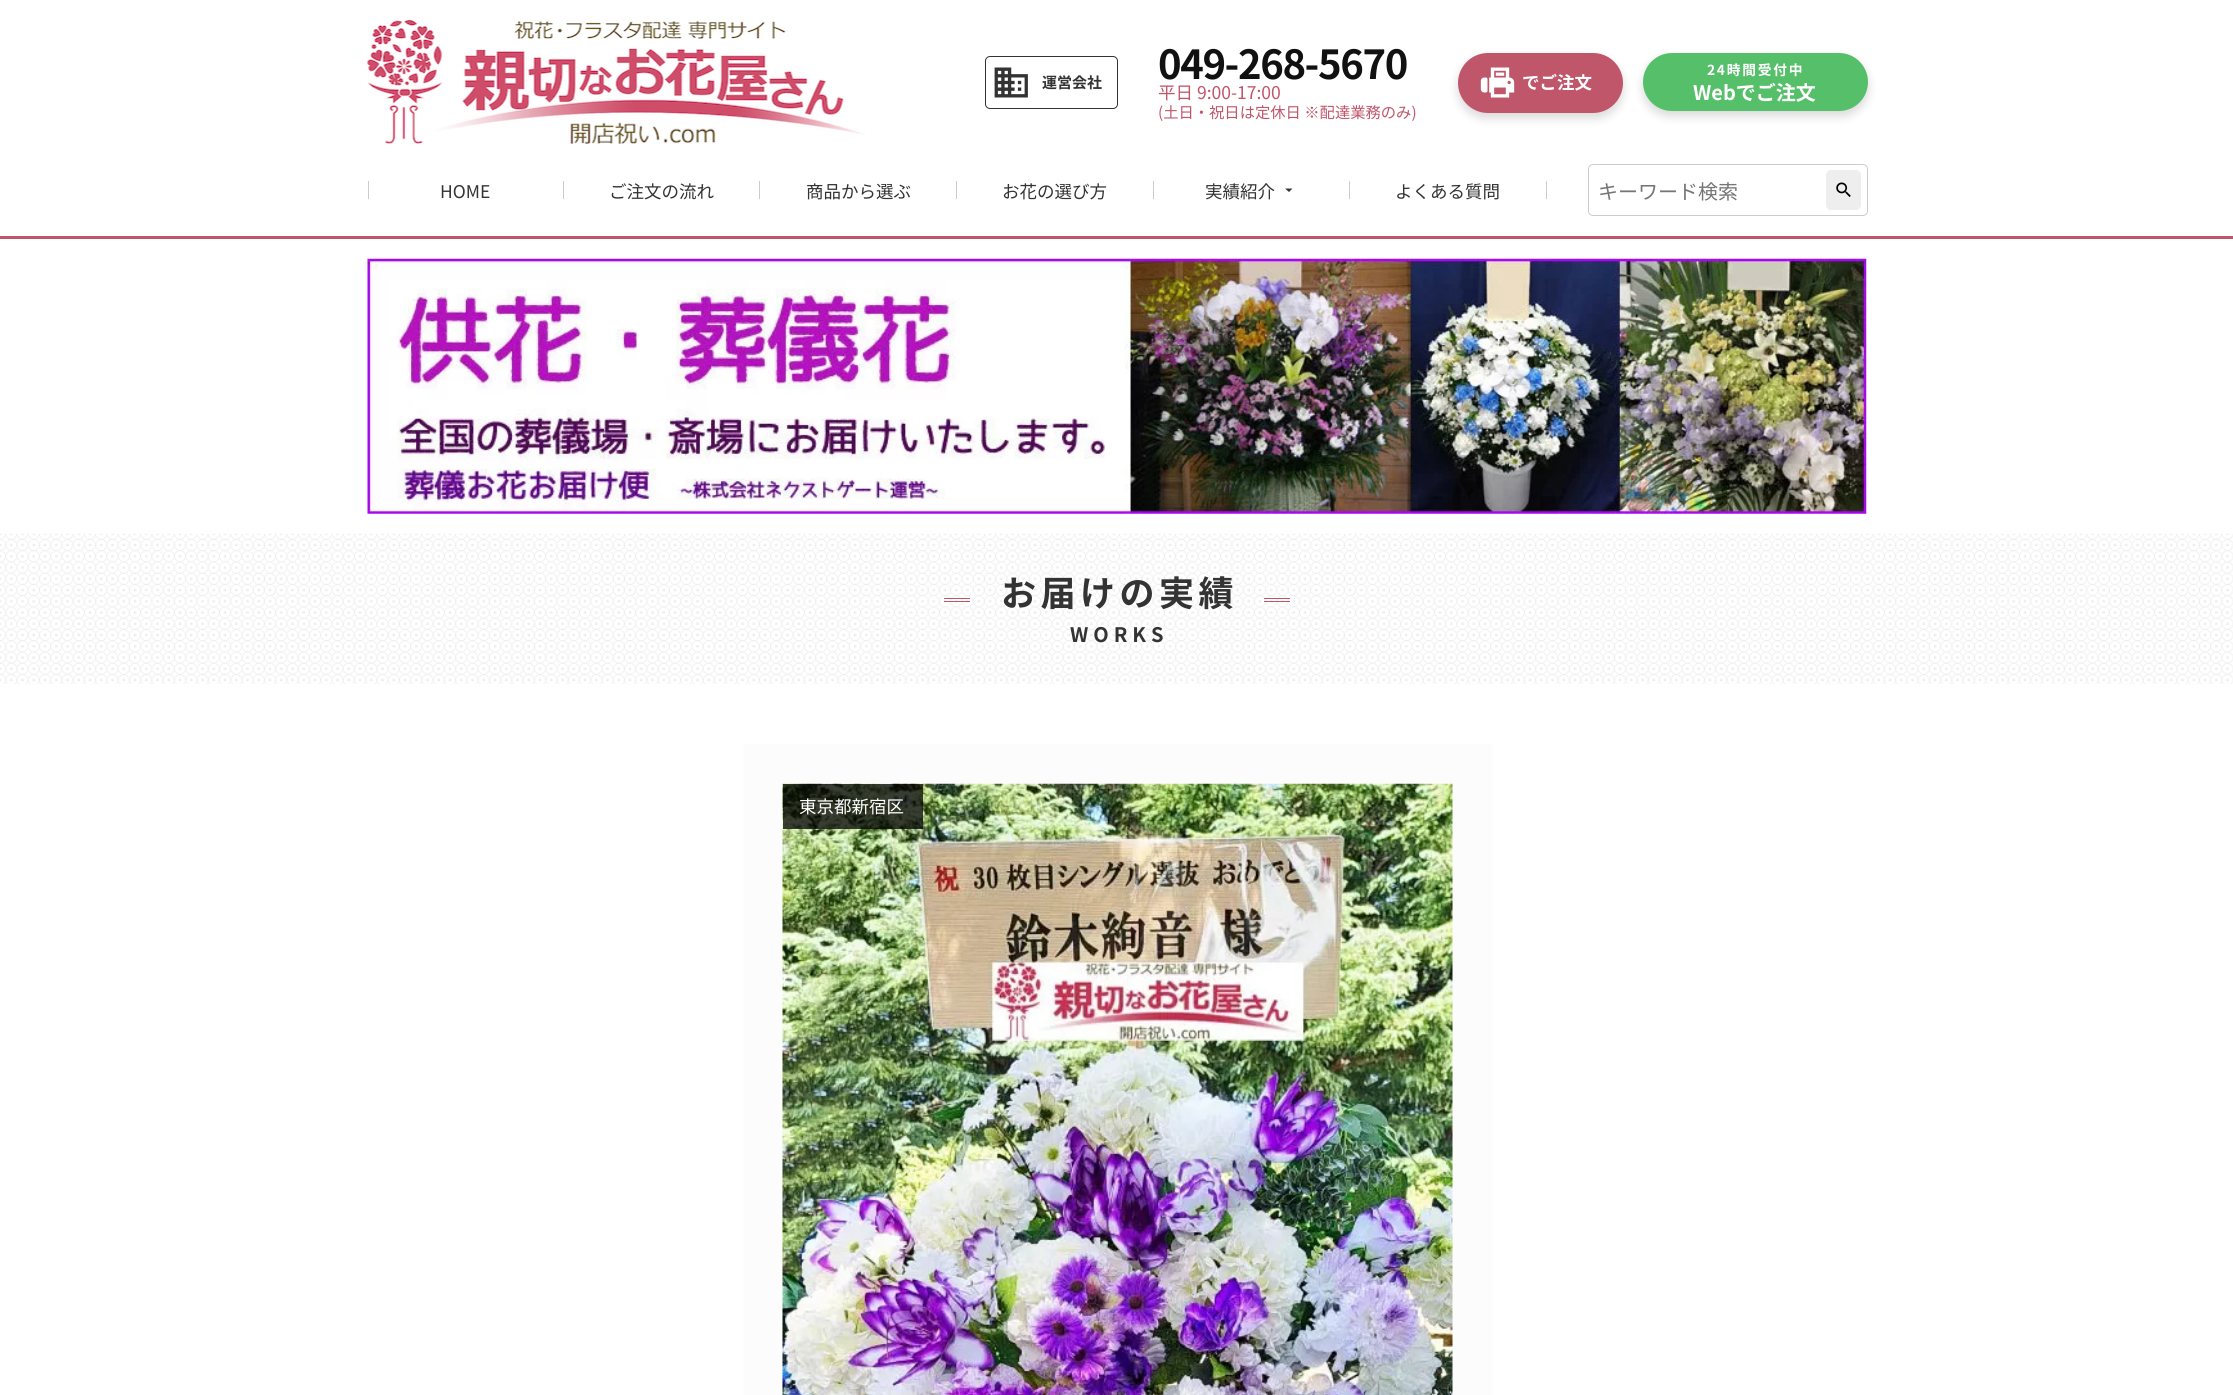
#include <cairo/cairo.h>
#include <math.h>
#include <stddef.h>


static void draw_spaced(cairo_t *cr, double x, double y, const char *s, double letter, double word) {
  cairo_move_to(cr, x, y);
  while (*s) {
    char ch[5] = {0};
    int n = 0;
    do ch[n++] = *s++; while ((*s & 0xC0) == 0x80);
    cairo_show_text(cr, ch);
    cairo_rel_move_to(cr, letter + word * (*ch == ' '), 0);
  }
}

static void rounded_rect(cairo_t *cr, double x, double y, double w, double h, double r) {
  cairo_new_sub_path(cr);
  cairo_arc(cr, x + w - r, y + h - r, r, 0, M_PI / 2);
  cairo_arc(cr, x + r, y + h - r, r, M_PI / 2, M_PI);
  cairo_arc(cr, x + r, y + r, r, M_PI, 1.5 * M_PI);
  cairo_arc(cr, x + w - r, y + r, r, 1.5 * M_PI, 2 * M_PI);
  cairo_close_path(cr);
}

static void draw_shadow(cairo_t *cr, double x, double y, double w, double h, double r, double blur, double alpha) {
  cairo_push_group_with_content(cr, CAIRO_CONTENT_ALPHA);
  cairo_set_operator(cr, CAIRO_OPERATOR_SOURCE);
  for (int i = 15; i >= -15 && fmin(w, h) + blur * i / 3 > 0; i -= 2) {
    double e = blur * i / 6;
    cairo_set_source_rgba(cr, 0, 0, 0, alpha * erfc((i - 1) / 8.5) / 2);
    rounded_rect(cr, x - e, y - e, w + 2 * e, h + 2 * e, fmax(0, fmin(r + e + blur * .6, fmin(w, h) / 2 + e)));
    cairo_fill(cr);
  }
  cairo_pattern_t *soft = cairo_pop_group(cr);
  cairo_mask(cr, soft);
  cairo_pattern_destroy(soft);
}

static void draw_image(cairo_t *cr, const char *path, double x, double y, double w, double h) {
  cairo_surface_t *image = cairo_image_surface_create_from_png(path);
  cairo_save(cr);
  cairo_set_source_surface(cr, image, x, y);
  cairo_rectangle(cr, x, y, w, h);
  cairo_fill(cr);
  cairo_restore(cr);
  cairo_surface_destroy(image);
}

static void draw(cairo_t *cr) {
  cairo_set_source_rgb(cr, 1, 1, 1);
  cairo_paint(cr);
  cairo_set_source_rgb(cr, 192 / 255.0, 86 / 255.0, 106 / 255.0);
  cairo_rectangle(cr, 0, 236, 2233, 3);
  cairo_fill(cr);
  draw_image(cr, "images/1.png", 367, 20, 498, 124);
  rounded_rect(cr, 985.5, 56.5, 132, 52, 4.5);
  cairo_set_source_rgb(cr, 51 / 255.0, 51 / 255.0, 51 / 255.0);
  cairo_set_line_width(cr, 1);
  cairo_stroke(cr);
  draw_image(cr, "images/2.png", 994, 67, 34, 31);
  cairo_set_source_rgb(cr, 0, 0, 0);
  draw_shadow(cr, 1458, 58, 165, 60, 30, 5, 0.15);
  cairo_set_source_rgb(cr, 192 / 255.0, 86 / 255.0, 106 / 255.0);
  rounded_rect(cr, 1458, 53, 165, 60, 30);
  cairo_fill(cr);
  draw_image(cr, "images/3.png", 1480, 67, 35, 31);
  cairo_set_source_rgb(cr, 0, 0, 0);
  draw_shadow(cr, 1643, 58, 225, 58, 29, 5, 0.15);
  cairo_set_source_rgb(cr, 86 / 255.0, 191 / 255.0, 105 / 255.0);
  rounded_rect(cr, 1643, 53, 225, 58, 29);
  cairo_fill(cr);
  cairo_set_source_rgb(cr, 204 / 255.0, 204 / 255.0, 204 / 255.0);
  cairo_rectangle(cr, 563, 181, 1, 18);
  cairo_fill(cr);
  cairo_rectangle(cr, 368, 181, 1, 18);
  cairo_fill(cr);
  cairo_rectangle(cr, 759, 181, 1, 18);
  cairo_fill(cr);
  cairo_rectangle(cr, 956, 181, 1, 18);
  cairo_fill(cr);
  cairo_rectangle(cr, 1153, 181, 1, 18);
  cairo_fill(cr);
  cairo_rectangle(cr, 1349, 181, 1, 18);
  cairo_fill(cr);
  cairo_set_source_rgb(cr, 51 / 255.0, 51 / 255.0, 51 / 255.0);
  cairo_new_path(cr);
  cairo_move_to(cr, 1285, 188.5);
  cairo_line_to(cr, 1292.5, 188.5);
  cairo_line_to(cr, 1289, 192);
  cairo_close_path(cr);
  cairo_fill(cr);
  cairo_set_source_rgb(cr, 204 / 255.0, 204 / 255.0, 204 / 255.0);
  cairo_rectangle(cr, 1546, 181, 1, 18);
  cairo_fill(cr);
  rounded_rect(cr, 1588.5, 164.5, 279, 51, 4.5);
  cairo_stroke(cr);
  cairo_set_source_rgb(cr, 238 / 255.0, 238 / 255.0, 238 / 255.0);
  rounded_rect(cr, 1826, 170, 35, 40, 5);
  cairo_fill(cr);
  draw_image(cr, "images/4.png", 1836, 182, 15, 15);
  draw_image(cr, "images/5.png", 367, 258, 1500, 256);
  draw_image(cr, "images/6.png", 0, 533, 2233, 151);
  cairo_set_source_rgb(cr, 192 / 255.0, 86 / 255.0, 106 / 255.0);
  cairo_rectangle(cr, 944, 598, 26, 1);
  cairo_fill(cr);
  cairo_rectangle(cr, 944, 601, 26, 1);
  cairo_fill(cr);
  cairo_rectangle(cr, 1264, 598, 26, 1);
  cairo_fill(cr);
  cairo_rectangle(cr, 1264, 601, 26, 1);
  cairo_fill(cr);
  cairo_set_source_rgb(cr, 252 / 255.0, 252 / 255.0, 252 / 255.0);
  cairo_rectangle(cr, 743, 744, 750, 651);
  cairo_fill(cr);
  draw_image(cr, "images/7.png", 782, 783, 671, 612);
  cairo_set_source_rgba(cr, 0, 0, 0, 0.75);
  cairo_rectangle(cr, 783, 784, 140, 45);
  cairo_fill(cr);
  cairo_select_font_face(cr, "Noto Sans JP", CAIRO_FONT_SLANT_NORMAL, CAIRO_FONT_WEIGHT_BOLD);
  cairo_set_font_size(cr, 15);
  cairo_set_source_rgb(cr, 51 / 255.0, 51 / 255.0, 51 / 255.0);
  cairo_move_to(cr, 1042, 88);
  cairo_show_text(cr, "運営会社");
  cairo_set_font_size(cr, 40);
  cairo_set_source_rgb(cr, 17 / 255.0, 17 / 255.0, 17 / 255.0);
  draw_spaced(cr, 1158, 79, "049-268-5670", -1.4, 0);
  cairo_select_font_face(cr, "Noto Sans JP", CAIRO_FONT_SLANT_NORMAL, CAIRO_FONT_WEIGHT_NORMAL);
  cairo_set_font_size(cr, 17.5);
  cairo_set_source_rgb(cr, 192 / 255.0, 86 / 255.0, 106 / 255.0);
  cairo_move_to(cr, 1158, 99);
  cairo_show_text(cr, "平日 9:00-17:00");
  cairo_set_font_size(cr, 15.3);
  cairo_move_to(cr, 1158, 118);
  cairo_show_text(cr, "(土日・祝日は定休日 ※配達業務のみ)");
  cairo_select_font_face(cr, "Noto Sans JP", CAIRO_FONT_SLANT_NORMAL, CAIRO_FONT_WEIGHT_BOLD);
  cairo_set_font_size(cr, 17.5);
  cairo_set_source_rgb(cr, 1, 1, 1);
  cairo_move_to(cr, 1522, 89);
  cairo_show_text(cr, "でご注文");
  cairo_set_font_size(cr, 13.75);
  draw_spaced(cr, 1707, 75, "24時間受付中", 1.75, 0);
  cairo_set_font_size(cr, 20);
  cairo_move_to(cr, 1693, 100);
  cairo_show_text(cr, "Webでご注文");
  cairo_select_font_face(cr, "Noto Sans JP", CAIRO_FONT_SLANT_NORMAL, CAIRO_FONT_WEIGHT_NORMAL);
  cairo_set_font_size(cr, 17.5);
  cairo_set_source_rgb(cr, 51 / 255.0, 51 / 255.0, 51 / 255.0);
  cairo_move_to(cr, 440, 198);
  cairo_show_text(cr, "HOME");
  cairo_move_to(cr, 609, 198);
  cairo_show_text(cr, "ご注文の流れ");
  cairo_move_to(cr, 806, 198);
  cairo_show_text(cr, "商品から選ぶ");
  cairo_move_to(cr, 1002, 198);
  cairo_show_text(cr, "お花の選び方");
  cairo_move_to(cr, 1205, 198);
  cairo_show_text(cr, "実績紹介");
  cairo_move_to(cr, 1395, 198);
  cairo_show_text(cr, "よくある質問");
  cairo_set_font_size(cr, 20);
  cairo_set_source_rgb(cr, 117 / 255.0, 117 / 255.0, 117 / 255.0);
  cairo_move_to(cr, 1598, 199);
  cairo_show_text(cr, "キーワード検索");
  cairo_select_font_face(cr, "Noto Sans JP", CAIRO_FONT_SLANT_NORMAL, CAIRO_FONT_WEIGHT_BOLD);
  cairo_set_font_size(cr, 35);
  cairo_set_source_rgb(cr, 51 / 255.0, 51 / 255.0, 51 / 255.0);
  draw_spaced(cr, 1001, 606, "お届けの実績", 4.5, 0);
  cairo_set_font_size(cr, 20);
  draw_spaced(cr, 1070, 642, "WORKS", 5, 0);
  cairo_select_font_face(cr, "Noto Sans JP", CAIRO_FONT_SLANT_NORMAL, CAIRO_FONT_WEIGHT_NORMAL);
  cairo_set_font_size(cr, 17.5);
  cairo_set_source_rgb(cr, 1, 1, 1);
  cairo_move_to(cr, 799, 813);
  cairo_show_text(cr, "東京都新宿区");
}

int main(void) {
  cairo_surface_t *surface = cairo_image_surface_create(CAIRO_FORMAT_RGB24, 2233, 1395);
  cairo_t *cr = cairo_create(surface);
  cairo_font_options_t *options = cairo_font_options_create();
  cairo_font_options_set_hint_metrics(options, CAIRO_HINT_METRICS_OFF);
  cairo_font_options_set_hint_style(options, CAIRO_HINT_STYLE_NONE);
  cairo_set_font_options(cr, options);
  cairo_set_miter_limit(cr, 4);
  draw(cr);
  cairo_surface_write_to_png(surface, "out.png");
  cairo_font_options_destroy(options);
  cairo_destroy(cr);
  cairo_surface_destroy(surface);
  return 0;
}
